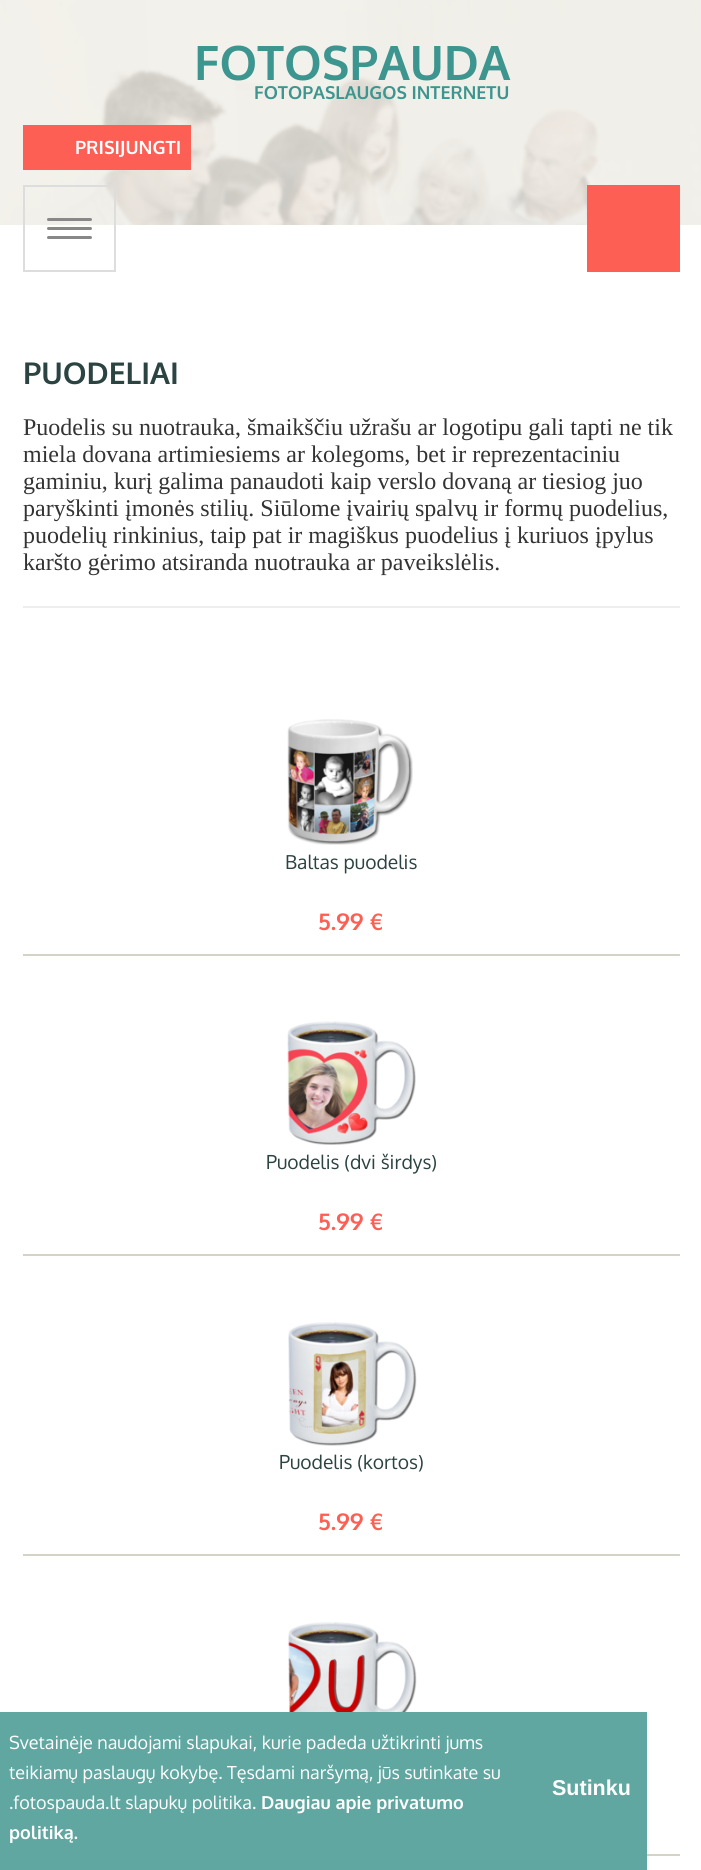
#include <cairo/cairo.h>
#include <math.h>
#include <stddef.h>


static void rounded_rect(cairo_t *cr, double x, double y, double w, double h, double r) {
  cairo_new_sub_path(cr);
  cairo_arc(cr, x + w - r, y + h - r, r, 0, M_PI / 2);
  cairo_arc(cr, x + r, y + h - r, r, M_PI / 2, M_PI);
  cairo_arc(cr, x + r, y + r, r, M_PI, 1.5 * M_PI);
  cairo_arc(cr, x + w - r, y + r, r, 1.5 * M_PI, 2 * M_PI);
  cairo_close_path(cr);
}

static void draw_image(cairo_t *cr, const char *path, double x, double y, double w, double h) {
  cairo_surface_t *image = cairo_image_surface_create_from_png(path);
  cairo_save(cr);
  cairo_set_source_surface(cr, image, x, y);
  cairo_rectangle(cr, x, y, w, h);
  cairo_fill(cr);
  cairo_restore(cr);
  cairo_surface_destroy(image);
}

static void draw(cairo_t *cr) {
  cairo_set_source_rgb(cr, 1, 1, 1);
  cairo_paint(cr);
  draw_image(cr, "images/1.png", 0, 0, 701, 225);
  cairo_set_source_rgb(cr, 254 / 255.0, 95 / 255.0, 85 / 255.0);
  cairo_rectangle(cr, 23, 125, 168, 45);
  cairo_fill(cr);
  cairo_rectangle(cr, 24, 186, 91, 85);
  cairo_set_source_rgb(cr, 221 / 255.0, 221 / 255.0, 221 / 255.0);
  cairo_stroke(cr);
  cairo_set_source_rgb(cr, 136 / 255.0, 136 / 255.0, 136 / 255.0);
  rounded_rect(cr, 47, 218, 45, 3, 1.5);
  cairo_fill(cr);
  rounded_rect(cr, 47, 227, 45, 3, 1.5);
  cairo_fill(cr);
  rounded_rect(cr, 47, 236, 45, 3, 1.5);
  cairo_fill(cr);
  cairo_set_source_rgb(cr, 254 / 255.0, 95 / 255.0, 85 / 255.0);
  cairo_rectangle(cr, 587, 185, 93, 87);
  cairo_fill(cr);
  cairo_set_source_rgb(cr, 238 / 255.0, 238 / 255.0, 238 / 255.0);
  cairo_rectangle(cr, 23, 606, 657, 2);
  cairo_fill(cr);
  cairo_set_source_rgb(cr, 213 / 255.0, 210 / 255.0, 198 / 255.0);
  cairo_rectangle(cr, 23, 954, 657, 2);
  cairo_fill(cr);
  draw_image(cr, "images/2.png", 287, 719, 126, 126);
  cairo_rectangle(cr, 23, 1254, 657, 2);
  cairo_fill(cr);
  draw_image(cr, "images/3.png", 287, 1021, 129, 124);
  cairo_rectangle(cr, 23, 1554, 657, 2);
  cairo_fill(cr);
  draw_image(cr, "images/4.png", 288, 1322, 129, 124);
  cairo_rectangle(cr, 647, 1854, 33, 2);
  cairo_fill(cr);
  draw_image(cr, "images/5.png", 288, 1622, 129, 90);
  cairo_set_source_rgb(cr, 97 / 255.0, 167 / 255.0, 161 / 255.0);
  cairo_rectangle(cr, 0, 1712, 647, 158);
  cairo_fill(cr);
  cairo_select_font_face(cr, "Oxygen", CAIRO_FONT_SLANT_NORMAL, CAIRO_FONT_WEIGHT_BOLD);
  cairo_set_font_size(cr, 47.5);
  cairo_set_source_rgb(cr, 60 / 255.0, 149 / 255.0, 143 / 255.0);
  cairo_move_to(cr, 194, 80);
  cairo_show_text(cr, "FOTOSPAUDA");
  cairo_set_font_size(cr, 17.9);
  cairo_move_to(cr, 254, 99);
  cairo_show_text(cr, "FOTOPASLAUGOS INTERNETU");
  cairo_set_font_size(cr, 18.25);
  cairo_set_source_rgb(cr, 1, 1, 1);
  cairo_move_to(cr, 75, 154);
  cairo_show_text(cr, "PRISIJUNGTI");
  cairo_set_font_size(cr, 30);
  cairo_set_source_rgb(cr, 43 / 255.0, 67 / 255.0, 65 / 255.0);
  cairo_move_to(cr, 23, 384);
  cairo_show_text(cr, "PUODELIAI");
  cairo_select_font_face(cr, "Liberation Serif", CAIRO_FONT_SLANT_NORMAL, CAIRO_FONT_WEIGHT_NORMAL);
  cairo_set_font_size(cr, 24);
  cairo_set_source_rgb(cr, 51 / 255.0, 51 / 255.0, 51 / 255.0);
  cairo_move_to(cr, 23, 435);
  cairo_show_text(cr, "Puodelis su nuotrauka, šmaikščiu užrašu ar logotipu gali tapti ne tik");
  cairo_move_to(cr, 23, 462);
  cairo_show_text(cr, "miela dovana artimiesiems ar kolegoms, bet ir reprezentaciniu");
  cairo_move_to(cr, 23, 489);
  cairo_show_text(cr, "gaminiu, kurį galima panaudoti kaip verslo dovaną ar tiesiog juo");
  cairo_move_to(cr, 23, 516);
  cairo_show_text(cr, "paryškinti įmonės stilių. Siūlome įvairių spalvų ir formų puodelius,");
  cairo_move_to(cr, 23, 543);
  cairo_show_text(cr, "puodelių rinkinius, taip pat ir magiškus puodelius į kuriuos įpylus");
  cairo_move_to(cr, 23, 570);
  cairo_show_text(cr, "karšto gėrimo atsiranda nuotrauka ar paveikslėlis.");
  cairo_select_font_face(cr, "Oxygen", CAIRO_FONT_SLANT_NORMAL, CAIRO_FONT_WEIGHT_NORMAL);
  cairo_set_font_size(cr, 19.25);
  cairo_set_source_rgb(cr, 43 / 255.0, 67 / 255.0, 65 / 255.0);
  cairo_move_to(cr, 285, 869);
  cairo_show_text(cr, "Baltas puodelis");
  cairo_select_font_face(cr, "Oxygen", CAIRO_FONT_SLANT_NORMAL, CAIRO_FONT_WEIGHT_BOLD);
  cairo_set_font_size(cr, 23);
  cairo_set_source_rgb(cr, 254 / 255.0, 95 / 255.0, 85 / 255.0);
  cairo_move_to(cr, 318, 930);
  cairo_show_text(cr, "5.99 €");
  cairo_select_font_face(cr, "Oxygen", CAIRO_FONT_SLANT_NORMAL, CAIRO_FONT_WEIGHT_NORMAL);
  cairo_set_font_size(cr, 19.25);
  cairo_set_source_rgb(cr, 43 / 255.0, 67 / 255.0, 65 / 255.0);
  cairo_move_to(cr, 266, 1169);
  cairo_show_text(cr, "Puodelis (dvi širdys)");
  cairo_select_font_face(cr, "Oxygen", CAIRO_FONT_SLANT_NORMAL, CAIRO_FONT_WEIGHT_BOLD);
  cairo_set_font_size(cr, 23);
  cairo_set_source_rgb(cr, 254 / 255.0, 95 / 255.0, 85 / 255.0);
  cairo_move_to(cr, 318, 1230);
  cairo_show_text(cr, "5.99 €");
  cairo_select_font_face(cr, "Oxygen", CAIRO_FONT_SLANT_NORMAL, CAIRO_FONT_WEIGHT_NORMAL);
  cairo_set_font_size(cr, 19.25);
  cairo_set_source_rgb(cr, 43 / 255.0, 67 / 255.0, 65 / 255.0);
  cairo_move_to(cr, 279, 1469);
  cairo_show_text(cr, "Puodelis (kortos)");
  cairo_select_font_face(cr, "Oxygen", CAIRO_FONT_SLANT_NORMAL, CAIRO_FONT_WEIGHT_BOLD);
  cairo_set_font_size(cr, 23);
  cairo_set_source_rgb(cr, 254 / 255.0, 95 / 255.0, 85 / 255.0);
  cairo_move_to(cr, 318, 1530);
  cairo_show_text(cr, "5.99 €");
  cairo_select_font_face(cr, "Oxygen", CAIRO_FONT_SLANT_NORMAL, CAIRO_FONT_WEIGHT_NORMAL);
  cairo_set_font_size(cr, 18);
  cairo_set_source_rgb(cr, 1, 1, 1);
  cairo_move_to(cr, 9, 1749);
  cairo_show_text(cr, "Svetainėje naudojami slapukai, kurie padeda užtikrinti jums");
  cairo_move_to(cr, 9, 1779);
  cairo_show_text(cr, "teikiamų paslaugų kokybę. Tęsdami naršymą, jūs sutinkate su");
  cairo_select_font_face(cr, "Liberation Sans", CAIRO_FONT_SLANT_NORMAL, CAIRO_FONT_WEIGHT_BOLD);
  cairo_set_font_size(cr, 21.5);
  cairo_move_to(cr, 552, 1795);
  cairo_show_text(cr, "Sutinku");
  cairo_select_font_face(cr, "Oxygen", CAIRO_FONT_SLANT_NORMAL, CAIRO_FONT_WEIGHT_NORMAL);
  cairo_set_font_size(cr, 18);
  cairo_move_to(cr, 9, 1809);
  cairo_show_text(cr, ".fotospauda.lt slapukų politika.");
  cairo_select_font_face(cr, "Oxygen", CAIRO_FONT_SLANT_NORMAL, CAIRO_FONT_WEIGHT_BOLD);
  cairo_move_to(cr, 261, 1809);
  cairo_show_text(cr, "Daugiau apie privatumo");
  cairo_move_to(cr, 9, 1839);
  cairo_show_text(cr, "politiką.");
}

int main(void) {
  cairo_surface_t *surface = cairo_image_surface_create(CAIRO_FORMAT_RGB24, 701, 1870);
  cairo_t *cr = cairo_create(surface);
  cairo_font_options_t *options = cairo_font_options_create();
  cairo_font_options_set_hint_metrics(options, CAIRO_HINT_METRICS_OFF);
  cairo_font_options_set_hint_style(options, CAIRO_HINT_STYLE_NONE);
  cairo_set_font_options(cr, options);
  cairo_set_miter_limit(cr, 4);
  draw(cr);
  cairo_surface_write_to_png(surface, "out.png");
  cairo_font_options_destroy(options);
  cairo_destroy(cr);
  cairo_surface_destroy(surface);
  return 0;
}
